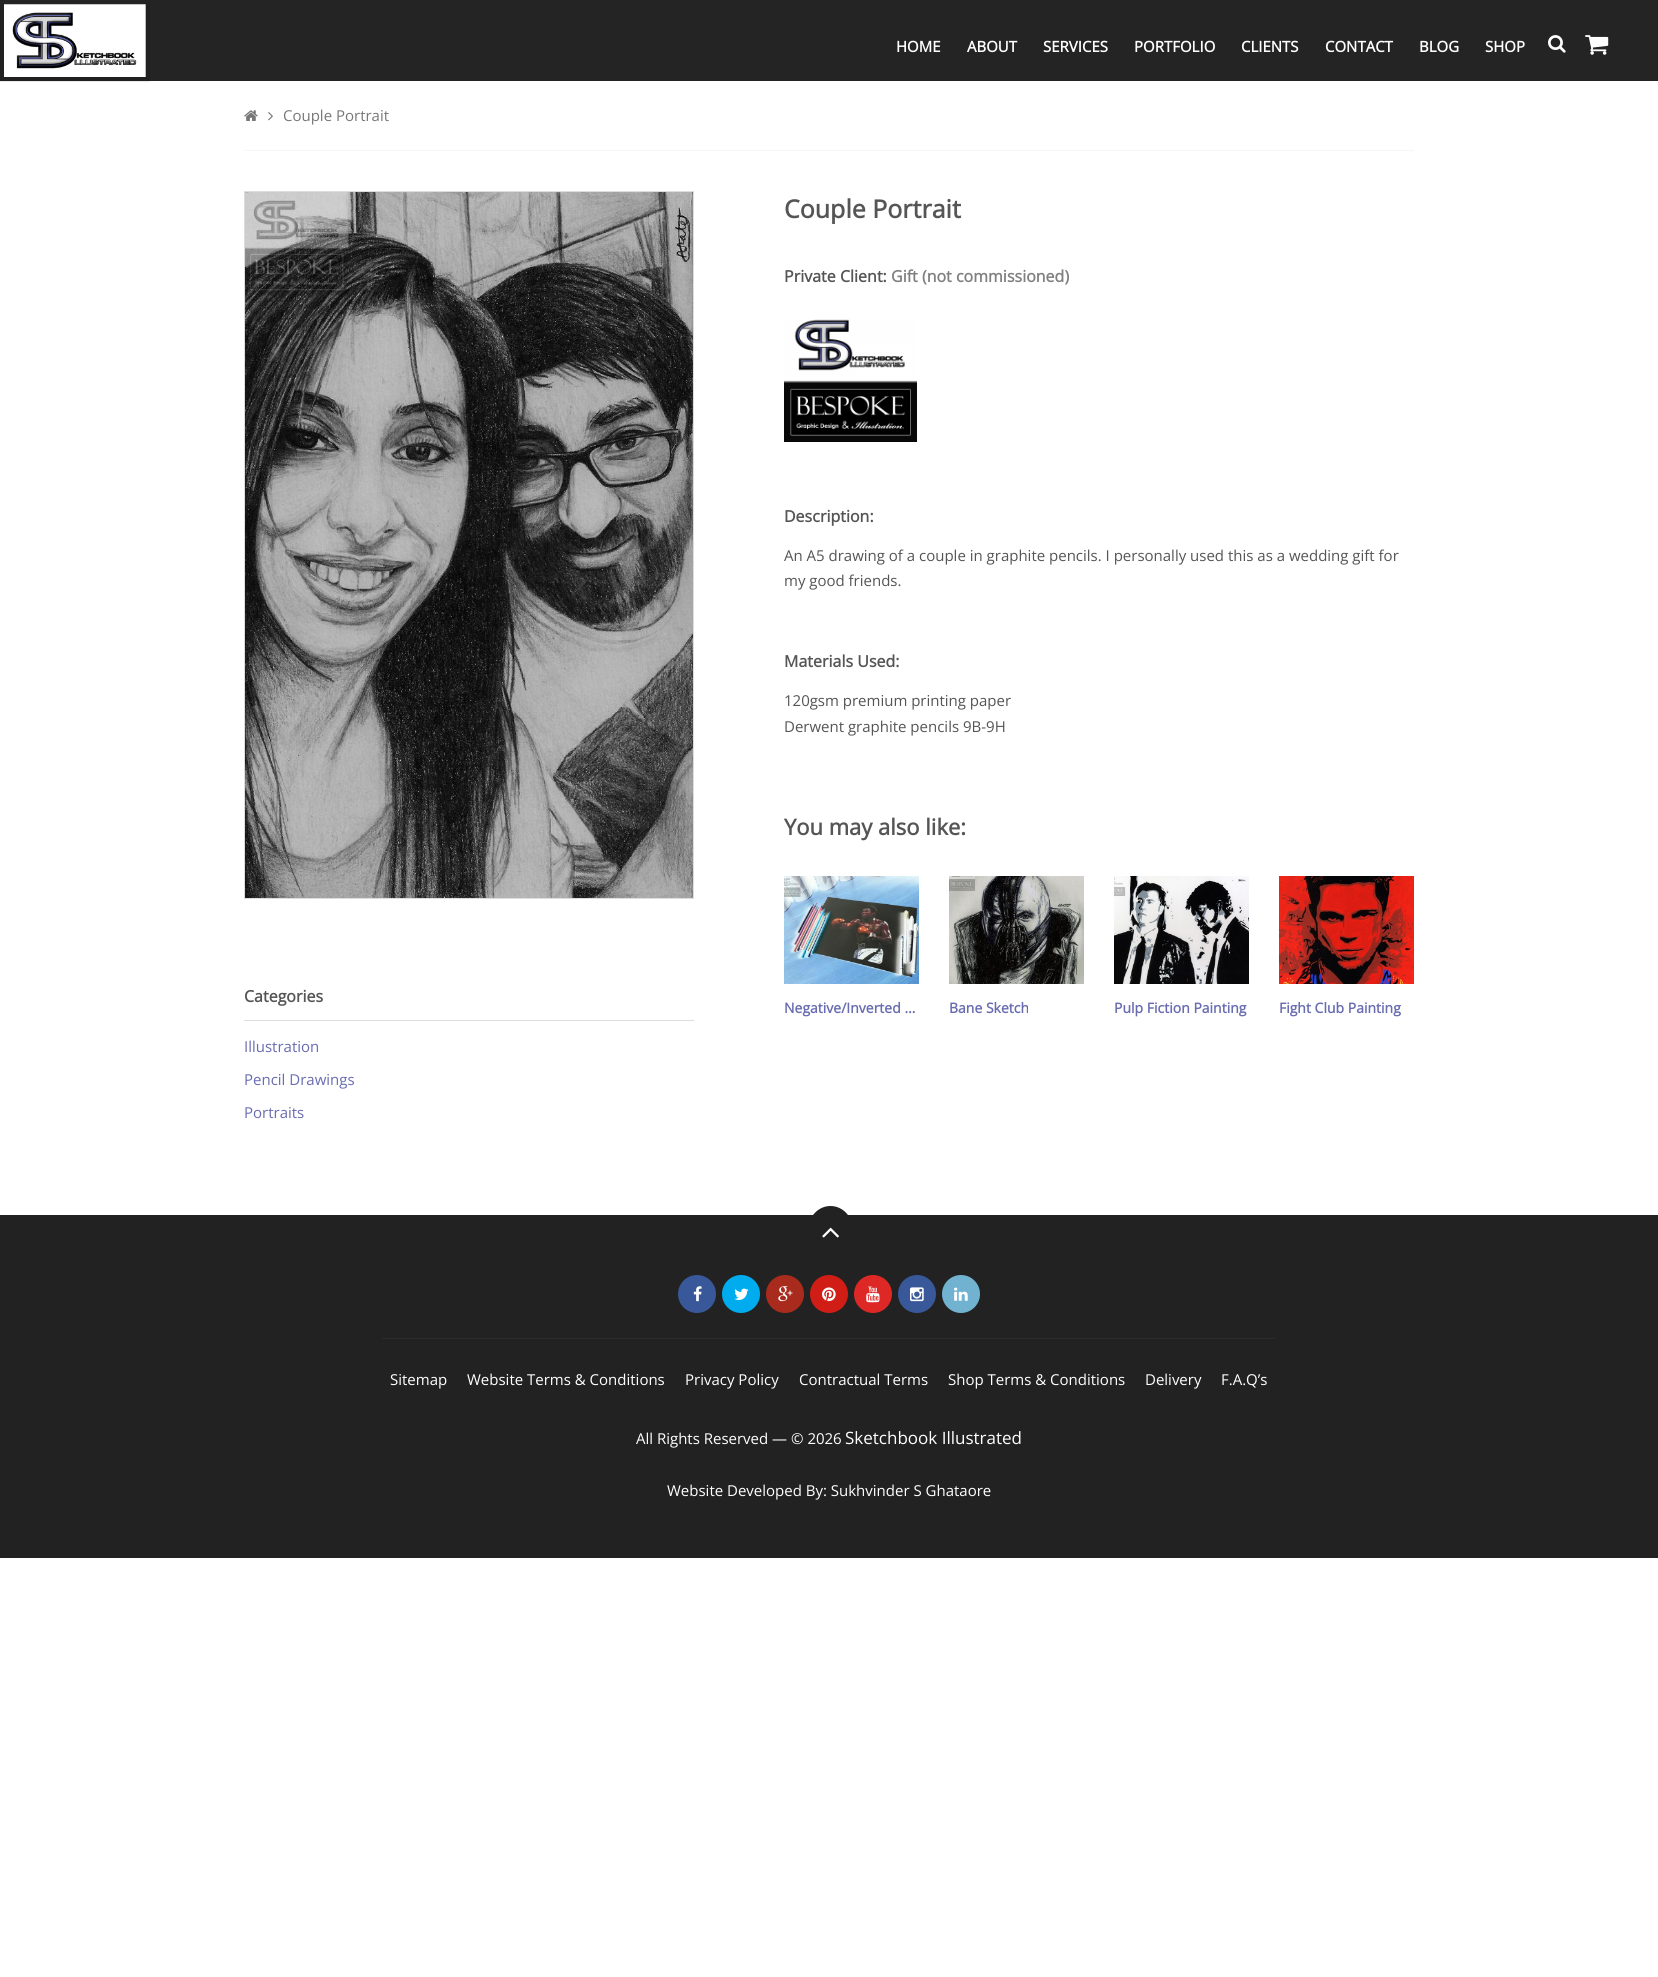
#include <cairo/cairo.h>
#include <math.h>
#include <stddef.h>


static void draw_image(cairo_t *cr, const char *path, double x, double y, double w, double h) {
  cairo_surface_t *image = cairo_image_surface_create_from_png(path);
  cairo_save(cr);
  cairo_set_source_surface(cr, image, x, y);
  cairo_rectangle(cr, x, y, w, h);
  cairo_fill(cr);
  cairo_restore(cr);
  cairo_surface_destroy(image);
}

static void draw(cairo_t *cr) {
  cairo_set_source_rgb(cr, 1, 1, 1);
  cairo_paint(cr);
  cairo_set_source_rgb(cr, 36 / 255.0, 36 / 255.0, 36 / 255.0);
  cairo_rectangle(cr, 0, 0, 1658, 81);
  cairo_fill(cr);
  draw_image(cr, "images/1.png", 0, 4, 150, 78);
  draw_image(cr, "images/2.png", 1548, 35, 18, 18);
  draw_image(cr, "images/3.png", 1585, 35, 24, 20);
  cairo_set_source_rgb(cr, 246 / 255.0, 246 / 255.0, 246 / 255.0);
  cairo_rectangle(cr, 244, 150, 1170, 1);
  cairo_fill(cr);
  draw_image(cr, "images/4.png", 244, 110, 14, 11);
  draw_image(cr, "images/5.png", 268, 112, 5, 9);
  draw_image(cr, "images/6.png", 784, 319, 133, 123);
  draw_image(cr, "images/7.png", 784, 876, 135, 108);
  draw_image(cr, "images/8.png", 949, 876, 135, 108);
  draw_image(cr, "images/9.png", 1114, 876, 135, 108);
  draw_image(cr, "images/10.png", 1279, 876, 135, 108);
  cairo_rectangle(cr, 244.5, 191.5, 449, 707);
  cairo_set_source_rgb(cr, 221 / 255.0, 221 / 255.0, 221 / 255.0);
  cairo_set_line_width(cr, 1);
  cairo_stroke(cr);
  draw_image(cr, "images/11.png", 245, 192, 448, 706);
  cairo_rectangle(cr, 244, 1020, 450, 1);
  cairo_fill(cr);
  cairo_set_source_rgb(cr, 34 / 255.0, 34 / 255.0, 34 / 255.0);
  cairo_rectangle(cr, 0, 1215, 1658, 343);
  cairo_fill(cr);
  cairo_new_path(cr);
  cairo_move_to(cr, 830.5, 1206);
  cairo_curve_to(cr, 843, 1206, 853, 1217, 853, 1230.5);
  cairo_curve_to(cr, 853, 1244, 843, 1255, 830.5, 1255);
  cairo_curve_to(cr, 818, 1255, 808, 1244, 808, 1230.5);
  cairo_curve_to(cr, 808, 1217, 818, 1206, 830.5, 1206);
  cairo_close_path(cr);
  cairo_fill(cr);
  draw_image(cr, "images/12.png", 822, 1227, 17, 11);
  cairo_set_source_rgb(cr, 56 / 255.0, 88 / 255.0, 153 / 255.0);
  cairo_arc(cr, 697, 1294, 19, 0, 2 * M_PI);
  cairo_fill(cr);
  draw_image(cr, "images/13.png", 693, 1286, 9, 16);
  cairo_set_source_rgb(cr, 0, 172 / 255.0, 238 / 255.0);
  cairo_arc(cr, 741, 1294, 19, 0, 2 * M_PI);
  cairo_fill(cr);
  draw_image(cr, "images/14.png", 734, 1288, 15, 12);
  cairo_set_source_rgb(cr, 169 / 255.0, 43 / 255.0, 29 / 255.0);
  cairo_arc(cr, 785, 1294, 19, 0, 2 * M_PI);
  cairo_fill(cr);
  draw_image(cr, "images/15.png", 778, 1286, 15, 16);
  cairo_set_source_rgb(cr, 208 / 255.0, 29 / 255.0, 21 / 255.0);
  cairo_arc(cr, 829, 1294, 19, 0, 2 * M_PI);
  cairo_fill(cr);
  draw_image(cr, "images/16.png", 822, 1287, 14, 15);
  cairo_set_source_rgb(cr, 221 / 255.0, 40 / 255.0, 38 / 255.0);
  cairo_arc(cr, 873, 1294, 19, 0, 2 * M_PI);
  cairo_fill(cr);
  draw_image(cr, "images/17.png", 866, 1286, 14, 17);
  cairo_set_source_rgb(cr, 56 / 255.0, 88 / 255.0, 153 / 255.0);
  cairo_arc(cr, 917, 1294, 19, 0, 2 * M_PI);
  cairo_fill(cr);
  draw_image(cr, "images/18.png", 910, 1287, 14, 15);
  cairo_set_source_rgb(cr, 113 / 255.0, 178 / 255.0, 208 / 255.0);
  cairo_arc(cr, 961, 1294, 19, 0, 2 * M_PI);
  cairo_fill(cr);
  draw_image(cr, "images/19.png", 954, 1287, 14, 14);
  cairo_set_source_rgb(cr, 43 / 255.0, 43 / 255.0, 43 / 255.0);
  cairo_rectangle(cr, 382, 1338, 894, 1);
  cairo_fill(cr);
  cairo_select_font_face(cr, "Open Sans", CAIRO_FONT_SLANT_NORMAL, CAIRO_FONT_WEIGHT_BOLD);
  cairo_set_font_size(cr, 15);
  cairo_set_source_rgb(cr, 1, 1, 1);
  cairo_move_to(cr, 896, 52);
  cairo_show_text(cr, "HOME");
  cairo_move_to(cr, 967, 52);
  cairo_show_text(cr, "ABOUT");
  cairo_move_to(cr, 1043, 52);
  cairo_show_text(cr, "SERVICES");
  cairo_move_to(cr, 1134, 52);
  cairo_show_text(cr, "PORTFOLIO");
  cairo_move_to(cr, 1241, 52);
  cairo_show_text(cr, "CLIENTS");
  cairo_move_to(cr, 1325, 52);
  cairo_show_text(cr, "CONTACT");
  cairo_move_to(cr, 1419, 52);
  cairo_show_text(cr, "BLOG");
  cairo_move_to(cr, 1485, 52);
  cairo_show_text(cr, "SHOP");
  cairo_select_font_face(cr, "Open Sans", CAIRO_FONT_SLANT_NORMAL, CAIRO_FONT_WEIGHT_NORMAL);
  cairo_set_source_rgb(cr, 119 / 255.0, 119 / 255.0, 119 / 255.0);
  cairo_move_to(cr, 283, 121);
  cairo_show_text(cr, "Couple Portrait");
  cairo_select_font_face(cr, "Open Sans", CAIRO_FONT_SLANT_NORMAL, CAIRO_FONT_WEIGHT_BOLD);
  cairo_set_font_size(cr, 25);
  cairo_set_source_rgb(cr, 85 / 255.0, 85 / 255.0, 85 / 255.0);
  cairo_move_to(cr, 784, 218);
  cairo_show_text(cr, "Couple Portrait");
  cairo_set_font_size(cr, 16);
  cairo_move_to(cr, 784, 282);
  cairo_show_text(cr, "Private Client:");
  cairo_set_source_rgb(cr, 128 / 255.0, 128 / 255.0, 128 / 255.0);
  cairo_move_to(cr, 891, 282);
  cairo_show_text(cr, "Gift (not commissioned)");
  cairo_set_source_rgb(cr, 85 / 255.0, 85 / 255.0, 85 / 255.0);
  cairo_move_to(cr, 784, 522);
  cairo_show_text(cr, "Description:");
  cairo_select_font_face(cr, "Open Sans", CAIRO_FONT_SLANT_NORMAL, CAIRO_FONT_WEIGHT_NORMAL);
  cairo_set_font_size(cr, 15);
  cairo_move_to(cr, 784, 561);
  cairo_show_text(cr, "An A5 drawing of a couple in graphite pencils. I personally used this as a wedding gift for");
  cairo_move_to(cr, 784, 586);
  cairo_show_text(cr, "my good friends.");
  cairo_select_font_face(cr, "Open Sans", CAIRO_FONT_SLANT_NORMAL, CAIRO_FONT_WEIGHT_BOLD);
  cairo_set_font_size(cr, 16);
  cairo_move_to(cr, 784, 667);
  cairo_show_text(cr, "Materials Used:");
  cairo_select_font_face(cr, "Open Sans", CAIRO_FONT_SLANT_NORMAL, CAIRO_FONT_WEIGHT_NORMAL);
  cairo_set_font_size(cr, 15);
  cairo_move_to(cr, 784, 706);
  cairo_show_text(cr, "120gsm premium printing paper");
  cairo_move_to(cr, 784, 732);
  cairo_show_text(cr, "Derwent graphite pencils 9B-9H");
  cairo_select_font_face(cr, "Open Sans", CAIRO_FONT_SLANT_NORMAL, CAIRO_FONT_WEIGHT_BOLD);
  cairo_set_font_size(cr, 22);
  cairo_move_to(cr, 784, 835);
  cairo_show_text(cr, "You may also like:");
  cairo_set_font_size(cr, 14);
  cairo_set_source_rgb(cr, 105 / 255.0, 108 / 255.0, 177 / 255.0);
  cairo_move_to(cr, 784, 1013);
  cairo_show_text(cr, "Negative/Inverted …");
  cairo_move_to(cr, 949, 1013);
  cairo_show_text(cr, "Bane Sketch");
  cairo_move_to(cr, 1114, 1013);
  cairo_show_text(cr, "Pulp Fiction Painting");
  cairo_move_to(cr, 1279, 1013);
  cairo_show_text(cr, "Fight Club Painting");
  cairo_set_font_size(cr, 16);
  cairo_set_source_rgb(cr, 85 / 255.0, 85 / 255.0, 85 / 255.0);
  cairo_move_to(cr, 244, 1002);
  cairo_show_text(cr, "Categories");
  cairo_select_font_face(cr, "Open Sans", CAIRO_FONT_SLANT_NORMAL, CAIRO_FONT_WEIGHT_NORMAL);
  cairo_set_font_size(cr, 15);
  cairo_set_source_rgb(cr, 105 / 255.0, 108 / 255.0, 177 / 255.0);
  cairo_move_to(cr, 244, 1052);
  cairo_show_text(cr, "Illustration");
  cairo_move_to(cr, 244, 1085);
  cairo_show_text(cr, "Pencil Drawings");
  cairo_move_to(cr, 244, 1118);
  cairo_show_text(cr, "Portraits");
  cairo_set_source_rgb(cr, 1, 1, 1);
  cairo_move_to(cr, 390, 1385);
  cairo_show_text(cr, "Sitemap");
  cairo_move_to(cr, 467, 1385);
  cairo_show_text(cr, "Website Terms & Conditions");
  cairo_move_to(cr, 685, 1385);
  cairo_show_text(cr, "Privacy Policy");
  cairo_move_to(cr, 799, 1385);
  cairo_show_text(cr, "Contractual Terms");
  cairo_move_to(cr, 948, 1385);
  cairo_show_text(cr, "Shop Terms & Conditions");
  cairo_move_to(cr, 1145, 1385);
  cairo_show_text(cr, "Delivery");
  cairo_move_to(cr, 1221, 1385);
  cairo_show_text(cr, "F.A.Q’s");
  cairo_move_to(cr, 636, 1444);
  cairo_show_text(cr, "All Rights Reserved — © 2026");
  cairo_set_font_size(cr, 17);
  cairo_move_to(cr, 845, 1444);
  cairo_show_text(cr, "Sketchbook Illustrated");
  cairo_set_font_size(cr, 15);
  cairo_move_to(cr, 667, 1496);
  cairo_show_text(cr, "Website Developed By: Sukhvinder S Ghataore");
}

int main(void) {
  cairo_surface_t *surface = cairo_image_surface_create(CAIRO_FORMAT_RGB24, 1658, 1977);
  cairo_t *cr = cairo_create(surface);
  cairo_font_options_t *options = cairo_font_options_create();
  cairo_font_options_set_hint_metrics(options, CAIRO_HINT_METRICS_OFF);
  cairo_font_options_set_hint_style(options, CAIRO_HINT_STYLE_NONE);
  cairo_set_font_options(cr, options);
  cairo_set_miter_limit(cr, 4);
  draw(cr);
  cairo_surface_write_to_png(surface, "out.png");
  cairo_font_options_destroy(options);
  cairo_destroy(cr);
  cairo_surface_destroy(surface);
  return 0;
}
